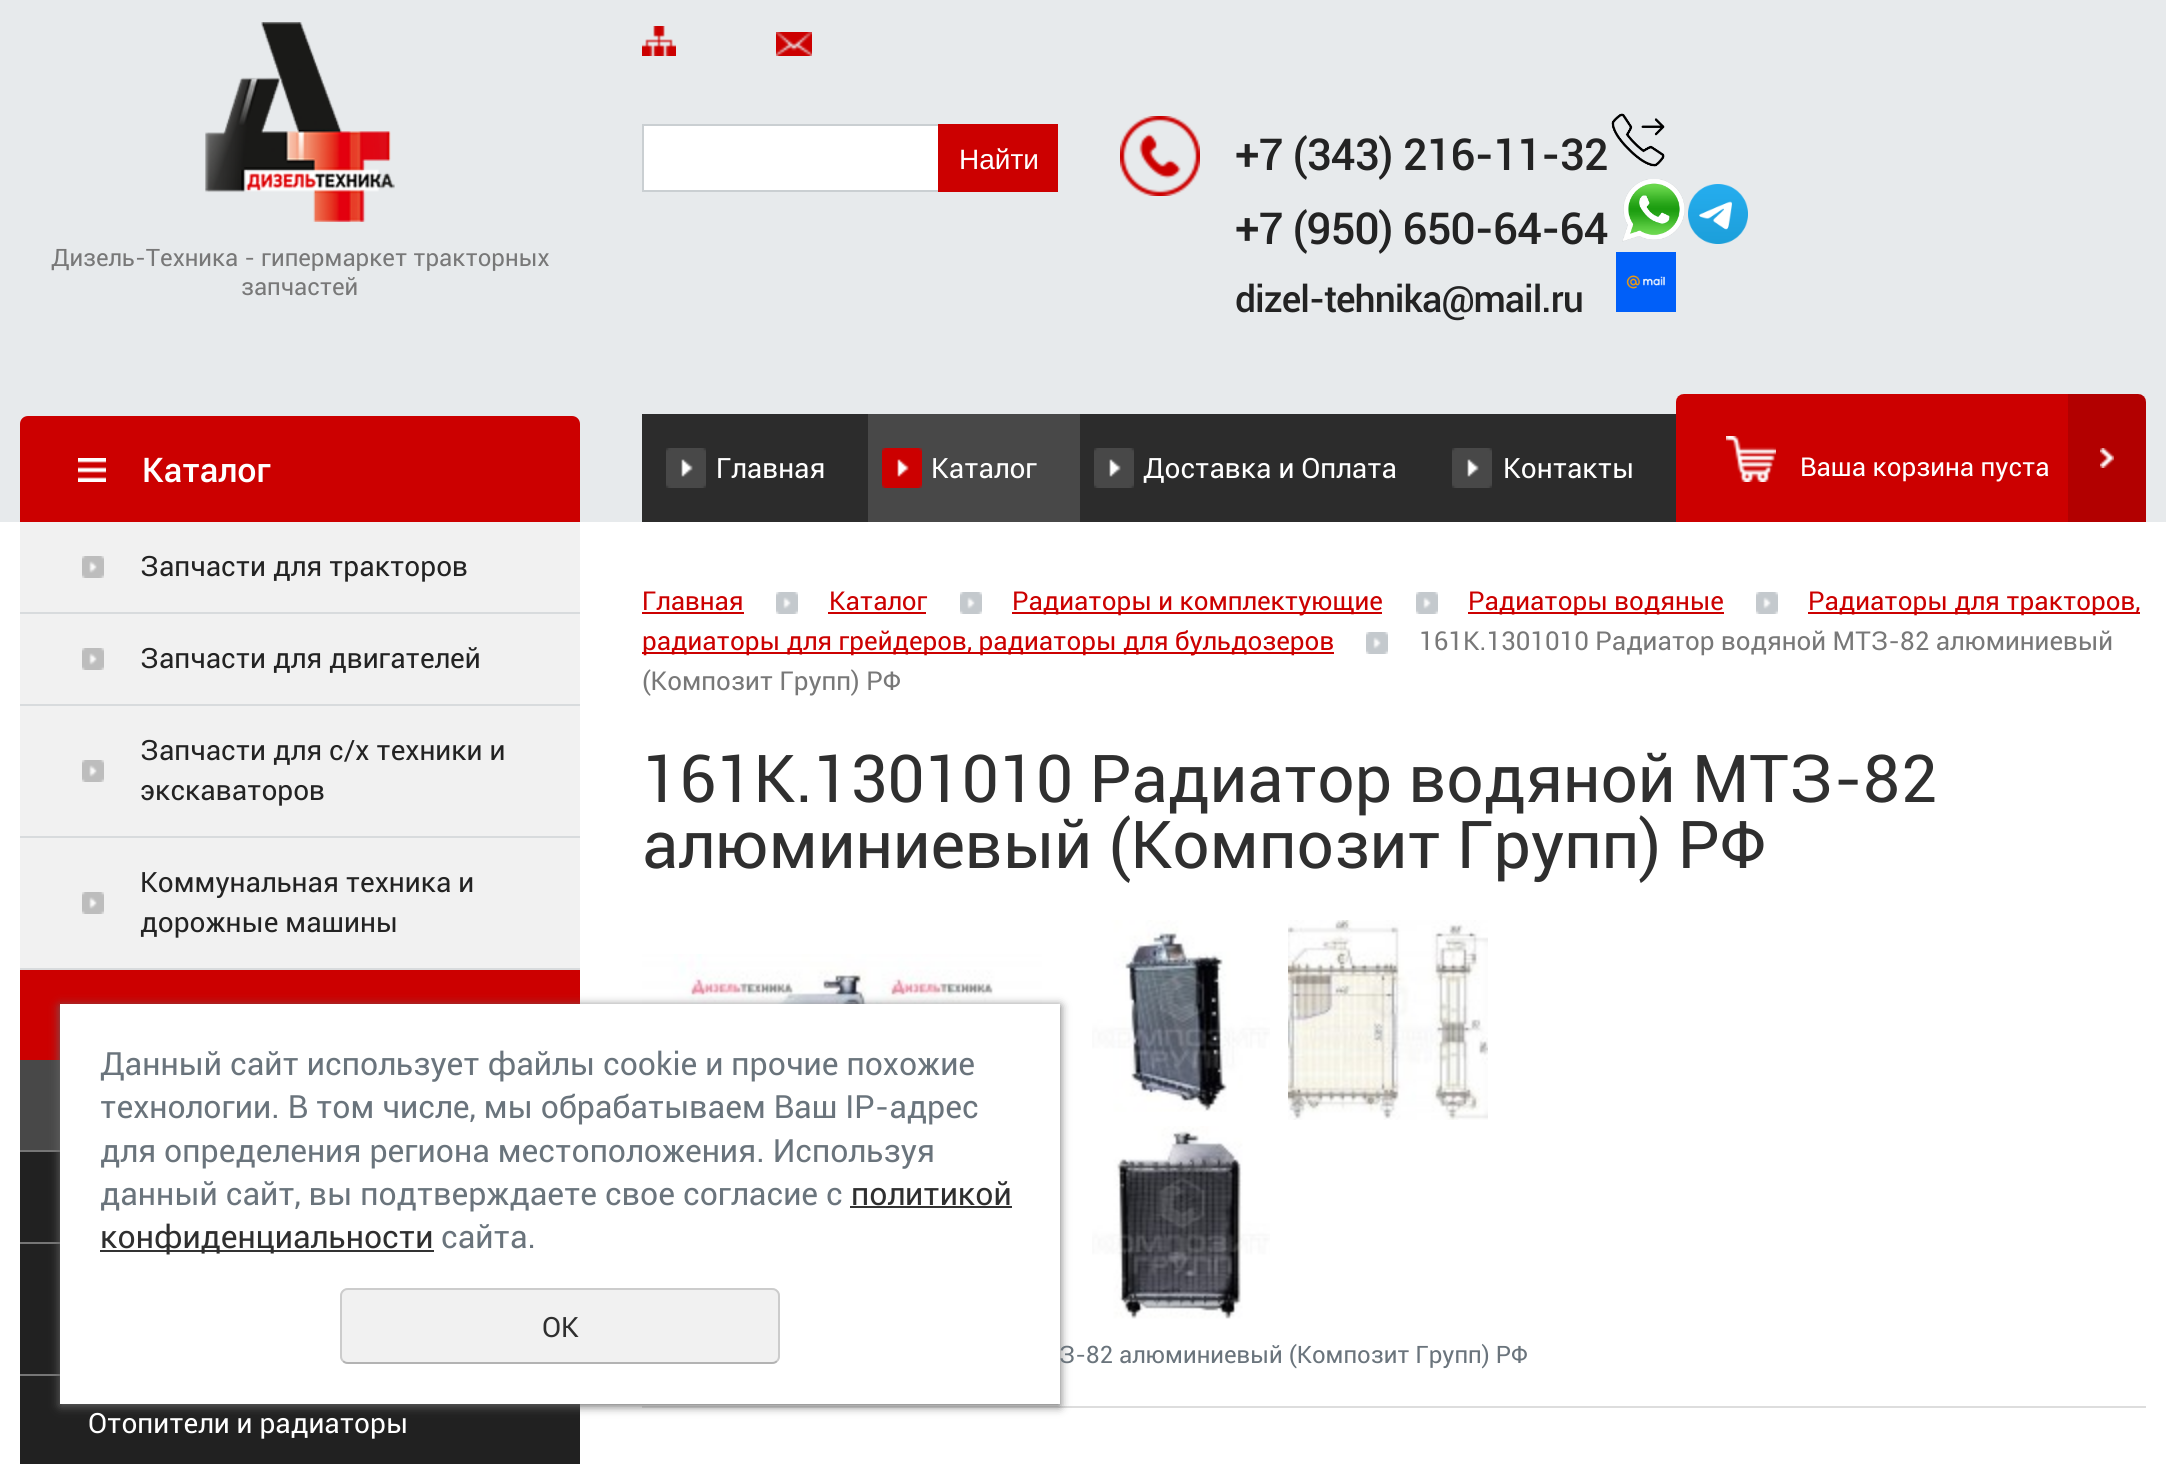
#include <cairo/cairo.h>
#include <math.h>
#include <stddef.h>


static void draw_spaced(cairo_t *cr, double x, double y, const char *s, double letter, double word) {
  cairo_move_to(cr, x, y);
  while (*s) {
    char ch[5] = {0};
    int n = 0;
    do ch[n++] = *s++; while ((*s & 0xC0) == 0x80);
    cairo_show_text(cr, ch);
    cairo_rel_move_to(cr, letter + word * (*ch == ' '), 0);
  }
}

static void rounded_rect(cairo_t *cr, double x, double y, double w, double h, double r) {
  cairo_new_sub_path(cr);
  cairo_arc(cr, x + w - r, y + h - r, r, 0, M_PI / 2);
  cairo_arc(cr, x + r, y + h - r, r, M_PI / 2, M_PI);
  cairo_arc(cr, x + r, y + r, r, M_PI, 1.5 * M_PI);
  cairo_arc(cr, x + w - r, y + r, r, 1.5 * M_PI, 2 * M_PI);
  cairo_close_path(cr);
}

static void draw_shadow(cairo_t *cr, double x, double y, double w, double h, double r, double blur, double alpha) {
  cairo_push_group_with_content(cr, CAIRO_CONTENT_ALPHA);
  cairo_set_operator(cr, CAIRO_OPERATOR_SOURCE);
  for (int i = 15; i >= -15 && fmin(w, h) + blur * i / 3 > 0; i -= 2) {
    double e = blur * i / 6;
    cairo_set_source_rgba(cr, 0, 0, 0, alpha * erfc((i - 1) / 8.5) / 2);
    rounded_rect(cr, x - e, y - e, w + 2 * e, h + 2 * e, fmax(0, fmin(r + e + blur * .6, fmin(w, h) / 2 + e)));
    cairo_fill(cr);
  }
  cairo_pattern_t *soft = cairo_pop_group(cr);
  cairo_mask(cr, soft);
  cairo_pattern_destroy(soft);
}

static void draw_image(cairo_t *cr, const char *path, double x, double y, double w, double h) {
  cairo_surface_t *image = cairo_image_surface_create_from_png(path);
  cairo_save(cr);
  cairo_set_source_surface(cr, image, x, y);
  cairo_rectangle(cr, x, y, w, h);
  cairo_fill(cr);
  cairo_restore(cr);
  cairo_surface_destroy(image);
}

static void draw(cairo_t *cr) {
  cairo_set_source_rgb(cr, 1, 1, 1);
  cairo_paint(cr);
  cairo_set_source_rgb(cr, 231 / 255.0, 234 / 255.0, 236 / 255.0);
  cairo_rectangle(cr, 0, 0, 2166, 522);
  cairo_fill(cr);
  draw_image(cr, "images/1.png", 642, 26, 34, 30);
  draw_image(cr, "images/2.png", 776, 32, 36, 24);
  cairo_set_source_rgb(cr, 1, 1, 1);
  cairo_rectangle(cr, 644, 126, 294, 64);
  cairo_fill(cr);
  cairo_set_source_rgb(cr, 202 / 255.0, 207 / 255.0, 210 / 255.0);
  cairo_rectangle(cr, 642, 124, 296, 2);
  cairo_fill(cr);
  cairo_rectangle(cr, 642, 190, 296, 2);
  cairo_fill(cr);
  cairo_rectangle(cr, 642, 124, 2, 68);
  cairo_fill(cr);
  cairo_set_source_rgb(cr, 204 / 255.0, 0, 0);
  cairo_rectangle(cr, 938, 124, 120, 68);
  cairo_fill(cr);
  draw_image(cr, "images/3.png", 1120, 116, 80, 80);
  draw_image(cr, "images/4.png", 1611, 113, 54, 54);
  draw_image(cr, "images/5.png", 1622, 179, 63, 63);
  draw_image(cr, "images/6.png", 1688, 184, 60, 60);
  draw_image(cr, "images/7.png", 1616, 252, 60, 60);
  draw_image(cr, "images/8.png", 205, 22, 190, 200);
  cairo_new_path(cr);
  cairo_move_to(cr, 28, 416);
  cairo_line_to(cr, 572, 416);
  cairo_curve_to(cr, 576.5, 416, 580, 419.5, 580, 424);
  cairo_line_to(cr, 580, 522);
  cairo_line_to(cr, 20, 522);
  cairo_line_to(cr, 20, 424);
  cairo_curve_to(cr, 20, 419.5, 23.5, 416, 28, 416);
  cairo_close_path(cr);
  cairo_fill(cr);
  draw_image(cr, "images/9.png", 78, 458, 28, 24);
  cairo_set_source_rgb(cr, 44 / 255.0, 44 / 255.0, 44 / 255.0);
  cairo_rectangle(cr, 642, 414, 1034, 108);
  cairo_fill(cr);
  draw_image(cr, "images/10.png", 666, 448, 40, 40);
  cairo_set_source_rgb(cr, 72 / 255.0, 72 / 255.0, 72 / 255.0);
  cairo_rectangle(cr, 868, 414, 212, 108);
  cairo_fill(cr);
  draw_image(cr, "images/11.png", 882, 448, 40, 40);
  draw_image(cr, "images/10.png", 1094, 448, 40, 40);
  draw_image(cr, "images/10.png", 1452, 448, 40, 40);
  draw_image(cr, "images/12.png", 1676, 394, 470, 128);
  cairo_set_source_rgb(cr, 241 / 255.0, 241 / 255.0, 241 / 255.0);
  cairo_rectangle(cr, 20, 522, 560, 90);
  cairo_fill(cr);
  draw_image(cr, "images/13.png", 82, 556, 22, 22);
  cairo_set_source_rgb(cr, 216 / 255.0, 219 / 255.0, 221 / 255.0);
  cairo_rectangle(cr, 20, 612, 560, 2);
  cairo_fill(cr);
  cairo_set_source_rgb(cr, 241 / 255.0, 241 / 255.0, 241 / 255.0);
  cairo_rectangle(cr, 20, 614, 560, 90);
  cairo_fill(cr);
  draw_image(cr, "images/13.png", 82, 648, 22, 22);
  cairo_set_source_rgb(cr, 216 / 255.0, 219 / 255.0, 221 / 255.0);
  cairo_rectangle(cr, 20, 704, 560, 2);
  cairo_fill(cr);
  cairo_set_source_rgb(cr, 241 / 255.0, 241 / 255.0, 241 / 255.0);
  cairo_rectangle(cr, 20, 706, 560, 130);
  cairo_fill(cr);
  draw_image(cr, "images/13.png", 82, 760, 22, 22);
  cairo_set_source_rgb(cr, 216 / 255.0, 219 / 255.0, 221 / 255.0);
  cairo_rectangle(cr, 20, 836, 560, 2);
  cairo_fill(cr);
  cairo_set_source_rgb(cr, 241 / 255.0, 241 / 255.0, 241 / 255.0);
  cairo_rectangle(cr, 20, 838, 560, 130);
  cairo_fill(cr);
  draw_image(cr, "images/13.png", 82, 892, 22, 22);
  cairo_set_source_rgb(cr, 216 / 255.0, 219 / 255.0, 221 / 255.0);
  cairo_rectangle(cr, 20, 968, 560, 2);
  cairo_fill(cr);
  cairo_set_source_rgb(cr, 204 / 255.0, 0, 0);
  cairo_rectangle(cr, 20, 970, 560, 90);
  cairo_fill(cr);
  cairo_set_source_rgb(cr, 72 / 255.0, 72 / 255.0, 72 / 255.0);
  cairo_rectangle(cr, 20, 1060, 40, 90);
  cairo_fill(cr);
  cairo_set_source_rgb(cr, 118 / 255.0, 118 / 255.0, 118 / 255.0);
  cairo_rectangle(cr, 20, 1150, 40, 2);
  cairo_fill(cr);
  cairo_set_source_rgb(cr, 33 / 255.0, 33 / 255.0, 33 / 255.0);
  cairo_rectangle(cr, 20, 1152, 40, 90);
  cairo_fill(cr);
  cairo_set_source_rgb(cr, 118 / 255.0, 118 / 255.0, 118 / 255.0);
  cairo_rectangle(cr, 20, 1242, 40, 2);
  cairo_fill(cr);
  cairo_set_source_rgb(cr, 33 / 255.0, 33 / 255.0, 33 / 255.0);
  cairo_rectangle(cr, 20, 1244, 40, 130);
  cairo_fill(cr);
  cairo_set_source_rgb(cr, 118 / 255.0, 118 / 255.0, 118 / 255.0);
  cairo_rectangle(cr, 20, 1374, 40, 2);
  cairo_fill(cr);
  cairo_set_source_rgb(cr, 33 / 255.0, 33 / 255.0, 33 / 255.0);
  cairo_rectangle(cr, 20, 1376, 560, 88);
  cairo_fill(cr);
  cairo_set_source_rgb(cr, 204 / 255.0, 0, 0);
  cairo_rectangle(cr, 642, 612, 102, 2);
  cairo_fill(cr);
  draw_image(cr, "images/14.png", 776, 592, 22, 22);
  cairo_rectangle(cr, 828, 612, 98, 2);
  cairo_fill(cr);
  draw_image(cr, "images/14.png", 960, 592, 22, 22);
  cairo_rectangle(cr, 1012, 612, 370, 2);
  cairo_fill(cr);
  draw_image(cr, "images/14.png", 1416, 592, 22, 22);
  cairo_rectangle(cr, 1468, 612, 256, 2);
  cairo_fill(cr);
  draw_image(cr, "images/14.png", 1756, 592, 22, 22);
  cairo_rectangle(cr, 1808, 612, 332, 2);
  cairo_fill(cr);
  cairo_rectangle(cr, 642, 652, 692, 2);
  cairo_fill(cr);
  draw_image(cr, "images/14.png", 1366, 632, 22, 22);
  draw_image(cr, "images/15.png", 642, 954, 400, 50);
  draw_image(cr, "images/16.png", 1092, 920, 178, 192);
  draw_image(cr, "images/17.png", 1092, 1126, 178, 193);
  draw_image(cr, "images/18.png", 1288, 920, 200, 200);
  cairo_set_source_rgb(cr, 221 / 255.0, 221 / 255.0, 221 / 255.0);
  cairo_rectangle(cr, 642, 1406, 1504, 2);
  cairo_fill(cr);
  cairo_set_source_rgb(cr, 102 / 255.0, 102 / 255.0, 102 / 255.0);
  draw_shadow(cr, 60, 1006, 1000, 400, 0, 5, 1);
  cairo_set_source_rgb(cr, 1, 1, 1);
  cairo_rectangle(cr, 60, 1004, 1000, 400);
  cairo_fill(cr);
  cairo_set_source_rgb(cr, 51 / 255.0, 51 / 255.0, 51 / 255.0);
  cairo_rectangle(cr, 850, 1206, 162, 2);
  cairo_fill(cr);
  cairo_rectangle(cr, 100, 1250, 334, 2);
  cairo_fill(cr);
  cairo_set_source_rgb(cr, 241 / 255.0, 241 / 255.0, 241 / 255.0);
  rounded_rect(cr, 340, 1288, 440, 76, 8);
  cairo_fill(cr);
  cairo_new_path(cr);
  cairo_move_to(cr, 777, 1361);
  cairo_curve_to(cr, 775.5, 1362.5, 774, 1363, 772, 1363);
  cairo_line_to(cr, 348, 1363);
  cairo_curve_to(cr, 346, 1363, 344.5, 1362.5, 343, 1361);
  cairo_set_source_rgb(cr, 179 / 255.0, 179 / 255.0, 179 / 255.0);
  cairo_stroke(cr);
  cairo_new_path(cr);
  cairo_move_to(cr, 343, 1361);
  cairo_curve_to(cr, 341.5, 1359.5, 341, 1358, 341, 1356);
  cairo_line_to(cr, 341, 1296);
  cairo_curve_to(cr, 341, 1294, 341.5, 1292.5, 343, 1291);
  cairo_curve_to(cr, 344.5, 1289.5, 346, 1289, 348, 1289);
  cairo_line_to(cr, 772, 1289);
  cairo_curve_to(cr, 774, 1289, 775.5, 1289.5, 777, 1291);
  cairo_curve_to(cr, 778.5, 1292.5, 779, 1294, 779, 1296);
  cairo_line_to(cr, 779, 1356);
  cairo_curve_to(cr, 779, 1358, 778.5, 1359.5, 777, 1361);
  cairo_set_source_rgb(cr, 204 / 255.0, 204 / 255.0, 204 / 255.0);
  cairo_stroke(cr);
  cairo_select_font_face(cr, "Liberation Sans", CAIRO_FONT_SLANT_NORMAL, CAIRO_FONT_WEIGHT_NORMAL);
  cairo_set_font_size(cr, 28);
  cairo_set_source_rgb(cr, 1, 1, 1);
  cairo_move_to(cr, 959, 169);
  cairo_show_text(cr, "Найти");
  cairo_select_font_face(cr, "Roboto Medium", CAIRO_FONT_SLANT_NORMAL, CAIRO_FONT_WEIGHT_NORMAL);
  cairo_set_font_size(cr, 44);
  cairo_set_source_rgb(cr, 35 / 255.0, 35 / 255.0, 35 / 255.0);
  draw_spaced(cr, 1235, 170, "+7 (343) 216-11-32", -1, 0);
  draw_spaced(cr, 1235, 244, "+7 (950) 650-64-64", -1, 0);
  cairo_set_font_size(cr, 37.25);
  draw_spaced(cr, 1235, 312, "dizel-tehnika@mail.ru", -1, 0);
  cairo_select_font_face(cr, "Roboto", CAIRO_FONT_SLANT_NORMAL, CAIRO_FONT_WEIGHT_NORMAL);
  cairo_set_font_size(cr, 24);
  cairo_set_source_rgb(cr, 120 / 255.0, 120 / 255.0, 120 / 255.0);
  cairo_move_to(cr, 51, 266);
  cairo_show_text(cr, "Дизель-Техника - гипермаркет тракторных");
  cairo_move_to(cr, 241, 295);
  cairo_show_text(cr, "запчастей");
  cairo_select_font_face(cr, "Roboto Medium", CAIRO_FONT_SLANT_NORMAL, CAIRO_FONT_WEIGHT_NORMAL);
  cairo_set_font_size(cr, 34);
  cairo_set_source_rgb(cr, 1, 1, 1);
  cairo_move_to(cr, 142, 482);
  cairo_show_text(cr, "Каталог");
  cairo_select_font_face(cr, "Roboto", CAIRO_FONT_SLANT_NORMAL, CAIRO_FONT_WEIGHT_NORMAL);
  cairo_set_font_size(cr, 28);
  cairo_move_to(cr, 716, 478);
  cairo_show_text(cr, "Главная");
  cairo_move_to(cr, 931, 478);
  cairo_show_text(cr, "Каталог");
  cairo_move_to(cr, 1143, 478);
  cairo_show_text(cr, "Доставка и Оплата");
  cairo_move_to(cr, 1503, 478);
  cairo_show_text(cr, "Контакты");
  cairo_set_font_size(cr, 26);
  cairo_move_to(cr, 1800, 476);
  cairo_show_text(cr, "Ваша корзина пуста");
  cairo_set_font_size(cr, 28);
  cairo_set_source_rgb(cr, 35 / 255.0, 35 / 255.0, 35 / 255.0);
  cairo_move_to(cr, 140, 576);
  cairo_show_text(cr, "Запчасти для тракторов");
  cairo_move_to(cr, 140, 668);
  cairo_show_text(cr, "Запчасти для двигателей");
  cairo_move_to(cr, 140, 760);
  cairo_show_text(cr, "Запчасти для с/х техники и");
  cairo_move_to(cr, 140, 800);
  cairo_show_text(cr, "экскаваторов");
  cairo_move_to(cr, 140, 892);
  cairo_show_text(cr, "Коммунальная техника и");
  cairo_move_to(cr, 140, 932);
  cairo_show_text(cr, "дорожные машины");
  cairo_set_source_rgb(cr, 1, 1, 1);
  cairo_move_to(cr, 88, 1433);
  cairo_show_text(cr, "Отопители и радиаторы");
  cairo_set_font_size(cr, 26);
  cairo_set_source_rgb(cr, 204 / 255.0, 0, 0);
  cairo_move_to(cr, 642, 610);
  cairo_show_text(cr, "Главная");
  cairo_move_to(cr, 829, 610);
  cairo_show_text(cr, "Каталог");
  cairo_move_to(cr, 1012, 610);
  cairo_show_text(cr, "Радиаторы и комплектующие");
  cairo_move_to(cr, 1468, 610);
  cairo_show_text(cr, "Радиаторы водяные");
  cairo_move_to(cr, 1808, 610);
  cairo_show_text(cr, "Радиаторы для тракторов,");
  cairo_move_to(cr, 642, 650);
  cairo_show_text(cr, "радиаторы для грейдеров, радиаторы для бульдозеров");
  cairo_set_source_rgb(cr, 120 / 255.0, 120 / 255.0, 120 / 255.0);
  cairo_move_to(cr, 1419, 650);
  cairo_show_text(cr, "161К.1301010 Радиатор водяной МТЗ-82 алюминиевый");
  cairo_move_to(cr, 642, 690);
  cairo_show_text(cr, "(Композит Групп) РФ");
  cairo_set_font_size(cr, 66);
  cairo_set_source_rgb(cr, 47 / 255.0, 47 / 255.0, 47 / 255.0);
  cairo_move_to(cr, 642, 802);
  cairo_show_text(cr, "161К.1301010 Радиатор водяной МТЗ-82");
  cairo_move_to(cr, 642, 868);
  cairo_show_text(cr, "алюминиевый (Композит Групп) РФ");
  cairo_set_font_size(cr, 24);
  cairo_set_source_rgb(cr, 106 / 255.0, 116 / 255.0, 124 / 255.0);
  cairo_move_to(cr, 1059, 1363);
  cairo_show_text(cr, "З-82 алюминиевый (Композит Групп) РФ");
  cairo_set_font_size(cr, 32);
  cairo_move_to(cr, 100, 1075);
  cairo_show_text(cr, "Данный сайт использует файлы cookie и прочие похожие");
  cairo_move_to(cr, 100, 1118);
  cairo_show_text(cr, "технологии. В том числе, мы обрабатываем Ваш IP-адрес");
  cairo_move_to(cr, 100, 1162);
  cairo_show_text(cr, "для определения региона местоположения. Используя");
  cairo_move_to(cr, 100, 1205);
  cairo_show_text(cr, "данный сайт, вы подтверждаете свое согласие с");
  cairo_set_source_rgb(cr, 47 / 255.0, 47 / 255.0, 47 / 255.0);
  cairo_move_to(cr, 851, 1205);
  cairo_show_text(cr, "политикой");
  cairo_move_to(cr, 100, 1248);
  cairo_show_text(cr, "конфиденциальности");
  cairo_set_source_rgb(cr, 106 / 255.0, 116 / 255.0, 124 / 255.0);
  cairo_move_to(cr, 441, 1248);
  cairo_show_text(cr, "сайта.");
  cairo_set_font_size(cr, 28);
  cairo_set_source_rgb(cr, 47 / 255.0, 47 / 255.0, 47 / 255.0);
  cairo_move_to(cr, 542, 1337);
  cairo_show_text(cr, "OK");
}

int main(void) {
  cairo_surface_t *surface = cairo_image_surface_create(CAIRO_FORMAT_RGB24, 2166, 1464);
  cairo_t *cr = cairo_create(surface);
  cairo_font_options_t *options = cairo_font_options_create();
  cairo_font_options_set_hint_metrics(options, CAIRO_HINT_METRICS_OFF);
  cairo_font_options_set_hint_style(options, CAIRO_HINT_STYLE_NONE);
  cairo_set_font_options(cr, options);
  cairo_set_miter_limit(cr, 4);
  draw(cr);
  cairo_surface_write_to_png(surface, "out.png");
  cairo_font_options_destroy(options);
  cairo_destroy(cr);
  cairo_surface_destroy(surface);
  return 0;
}
